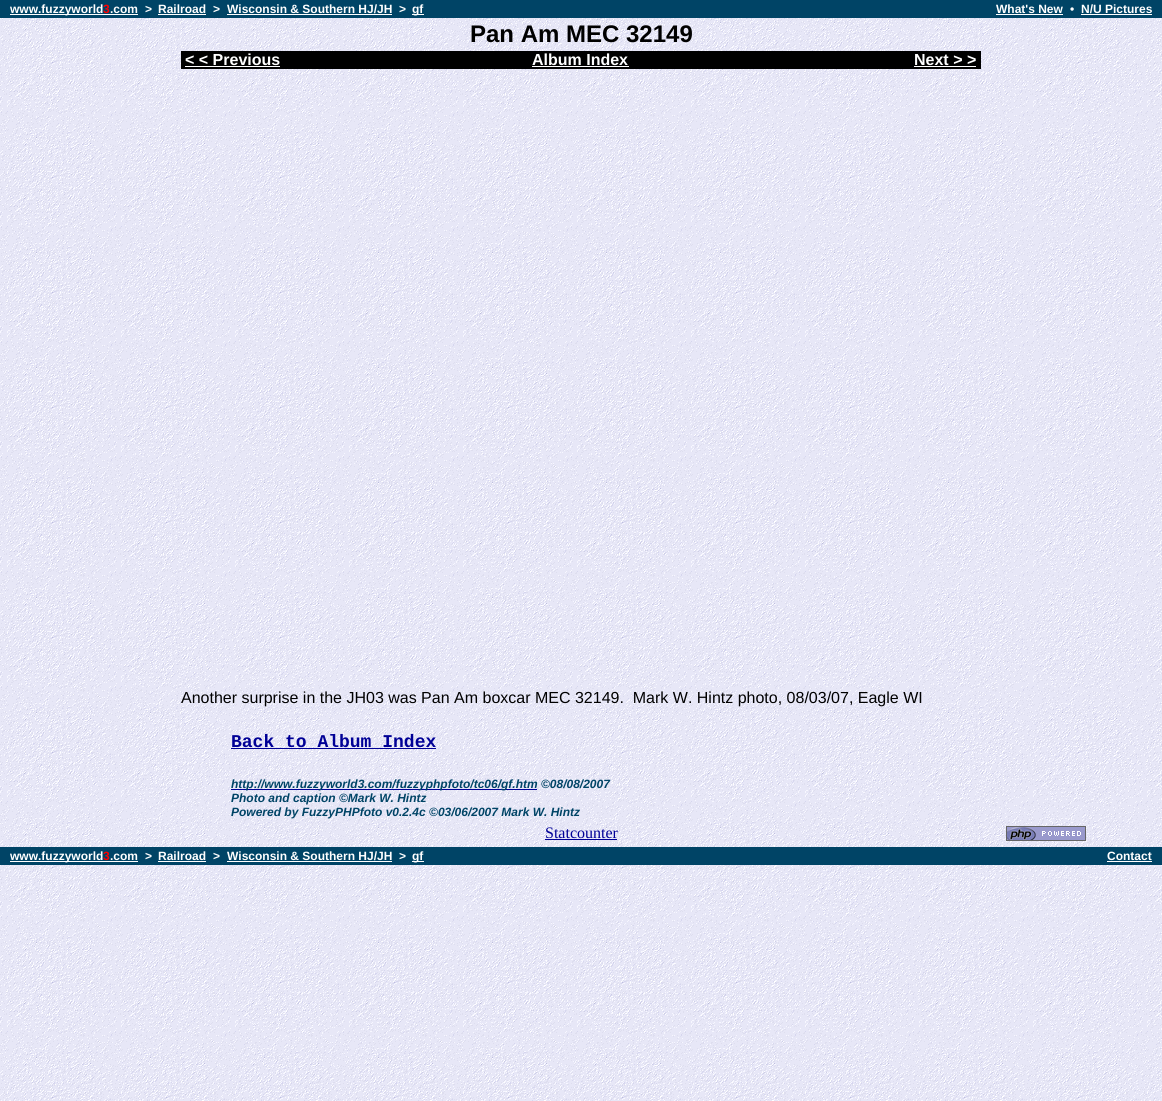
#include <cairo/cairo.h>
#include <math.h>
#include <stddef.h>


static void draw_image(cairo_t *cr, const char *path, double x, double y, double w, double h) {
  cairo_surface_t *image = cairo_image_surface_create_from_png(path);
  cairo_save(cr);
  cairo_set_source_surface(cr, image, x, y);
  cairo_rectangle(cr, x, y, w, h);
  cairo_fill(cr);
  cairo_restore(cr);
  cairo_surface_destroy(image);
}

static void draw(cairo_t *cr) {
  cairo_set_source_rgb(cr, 1, 1, 1);
  cairo_paint(cr);
  draw_image(cr, "images/1.png", 0, 18, 1162, 1083);
  cairo_set_source_rgb(cr, 0, 68 / 255.0, 102 / 255.0);
  cairo_rectangle(cr, 0, 0, 1162, 18);
  cairo_fill(cr);
  cairo_set_source_rgb(cr, 1, 1, 1);
  cairo_rectangle(cr, 10, 14, 128, 1);
  cairo_fill(cr);
  cairo_rectangle(cr, 158, 14, 48, 1);
  cairo_fill(cr);
  cairo_rectangle(cr, 227, 14, 165, 1);
  cairo_fill(cr);
  cairo_rectangle(cr, 412, 14, 12, 1);
  cairo_fill(cr);
  cairo_rectangle(cr, 996, 14, 67, 1);
  cairo_fill(cr);
  cairo_rectangle(cr, 1081, 14, 71, 1);
  cairo_fill(cr);
  cairo_set_source_rgb(cr, 0, 0, 0);
  cairo_rectangle(cr, 181, 51, 800, 18);
  cairo_fill(cr);
  cairo_set_source_rgb(cr, 1, 1, 1);
  cairo_rectangle(cr, 185, 66, 95, 1);
  cairo_fill(cr);
  cairo_rectangle(cr, 532, 66, 97, 1);
  cairo_fill(cr);
  cairo_rectangle(cr, 914, 66, 62, 1);
  cairo_fill(cr);
  cairo_set_source_rgb(cr, 0, 0, 150 / 255.0);
  cairo_rectangle(cr, 231, 748, 205, 1);
  cairo_fill(cr);
  cairo_rectangle(cr, 231, 789, 306, 1);
  cairo_fill(cr);
  cairo_rectangle(cr, 545, 839, 72, 1);
  cairo_fill(cr);
  draw_image(cr, "images/2.png", 1006, 826, 80, 15);
  cairo_set_source_rgb(cr, 0, 68 / 255.0, 102 / 255.0);
  cairo_rectangle(cr, 0, 847, 1162, 18);
  cairo_fill(cr);
  cairo_set_source_rgb(cr, 1, 1, 1);
  cairo_rectangle(cr, 10, 861, 128, 1);
  cairo_fill(cr);
  cairo_rectangle(cr, 158, 861, 48, 1);
  cairo_fill(cr);
  cairo_rectangle(cr, 227, 861, 165, 1);
  cairo_fill(cr);
  cairo_rectangle(cr, 412, 861, 12, 1);
  cairo_fill(cr);
  cairo_rectangle(cr, 1107, 861, 45, 1);
  cairo_fill(cr);
  cairo_select_font_face(cr, "Liberation Sans", CAIRO_FONT_SLANT_NORMAL, CAIRO_FONT_WEIGHT_BOLD);
  cairo_set_font_size(cr, 12);
  cairo_move_to(cr, 10, 13);
  cairo_show_text(cr, "www.fuzzyworld");
  cairo_set_source_rgb(cr, 1, 0, 0);
  cairo_move_to(cr, 103, 13);
  cairo_show_text(cr, "3");
  cairo_set_source_rgb(cr, 1, 1, 1);
  cairo_move_to(cr, 110, 13);
  cairo_show_text(cr, ".com");
  cairo_move_to(cr, 145, 13);
  cairo_show_text(cr, ">");
  cairo_move_to(cr, 158, 13);
  cairo_show_text(cr, "Railroad");
  cairo_move_to(cr, 213, 13);
  cairo_show_text(cr, ">");
  cairo_move_to(cr, 227, 13);
  cairo_show_text(cr, "Wisconsin & Southern HJ/JH");
  cairo_move_to(cr, 399, 13);
  cairo_show_text(cr, ">");
  cairo_move_to(cr, 412, 13);
  cairo_show_text(cr, "gf");
  cairo_move_to(cr, 996, 13);
  cairo_show_text(cr, "What's New");
  cairo_move_to(cr, 1070, 13);
  cairo_show_text(cr, "•");
  cairo_move_to(cr, 1081, 13);
  cairo_show_text(cr, "N/U Pictures");
  cairo_set_font_size(cr, 24);
  cairo_set_source_rgb(cr, 0, 0, 0);
  cairo_move_to(cr, 470, 42);
  cairo_show_text(cr, "Pan Am MEC 32149");
  cairo_set_font_size(cr, 16);
  cairo_set_source_rgb(cr, 1, 1, 1);
  cairo_move_to(cr, 185, 65);
  cairo_show_text(cr, "< < Previous");
  cairo_move_to(cr, 532, 65);
  cairo_show_text(cr, "Album Index");
  cairo_move_to(cr, 914, 65);
  cairo_show_text(cr, "Next > >");
  cairo_select_font_face(cr, "Liberation Sans", CAIRO_FONT_SLANT_NORMAL, CAIRO_FONT_WEIGHT_NORMAL);
  cairo_set_source_rgb(cr, 0, 0, 0);
  cairo_move_to(cr, 181, 703);
  cairo_show_text(cr, "Another surprise in the JH03 was Pan Am boxcar MEC 32149.  Mark W. Hintz photo, 08/03/07, Eagle WI");
  cairo_select_font_face(cr, "Liberation Mono", CAIRO_FONT_SLANT_NORMAL, CAIRO_FONT_WEIGHT_BOLD);
  cairo_set_font_size(cr, 18);
  cairo_set_source_rgb(cr, 0, 0, 150 / 255.0);
  cairo_move_to(cr, 231, 747);
  cairo_show_text(cr, "Back to Album Index");
  cairo_select_font_face(cr, "Liberation Sans", CAIRO_FONT_SLANT_ITALIC, CAIRO_FONT_WEIGHT_BOLD);
  cairo_set_font_size(cr, 12);
  cairo_set_source_rgb(cr, 0, 68 / 255.0, 102 / 255.0);
  cairo_move_to(cr, 231, 788);
  cairo_show_text(cr, "http://www.fuzzyworld3.com/fuzzyphpfoto/tc06/gf.htm ©08/08/2007");
  cairo_move_to(cr, 231, 802);
  cairo_show_text(cr, "Photo and caption ©Mark W. Hintz");
  cairo_move_to(cr, 231, 816);
  cairo_show_text(cr, "Powered by FuzzyPHPfoto v0.2.4c ©03/06/2007 Mark W. Hintz");
  cairo_select_font_face(cr, "Liberation Serif", CAIRO_FONT_SLANT_NORMAL, CAIRO_FONT_WEIGHT_NORMAL);
  cairo_set_font_size(cr, 16);
  cairo_set_source_rgb(cr, 0, 0, 150 / 255.0);
  cairo_move_to(cr, 545, 838);
  cairo_show_text(cr, "Statcounter");
  cairo_select_font_face(cr, "Liberation Sans", CAIRO_FONT_SLANT_NORMAL, CAIRO_FONT_WEIGHT_BOLD);
  cairo_set_font_size(cr, 12);
  cairo_set_source_rgb(cr, 1, 1, 1);
  cairo_move_to(cr, 10, 860);
  cairo_show_text(cr, "www.fuzzyworld");
  cairo_set_source_rgb(cr, 1, 0, 0);
  cairo_move_to(cr, 103, 860);
  cairo_show_text(cr, "3");
  cairo_set_source_rgb(cr, 1, 1, 1);
  cairo_move_to(cr, 110, 860);
  cairo_show_text(cr, ".com");
  cairo_move_to(cr, 145, 860);
  cairo_show_text(cr, ">");
  cairo_move_to(cr, 158, 860);
  cairo_show_text(cr, "Railroad");
  cairo_move_to(cr, 213, 860);
  cairo_show_text(cr, ">");
  cairo_move_to(cr, 227, 860);
  cairo_show_text(cr, "Wisconsin & Southern HJ/JH");
  cairo_move_to(cr, 399, 860);
  cairo_show_text(cr, ">");
  cairo_move_to(cr, 412, 860);
  cairo_show_text(cr, "gf");
  cairo_move_to(cr, 1107, 860);
  cairo_show_text(cr, "Contact");
}

int main(void) {
  cairo_surface_t *surface = cairo_image_surface_create(CAIRO_FORMAT_RGB24, 1162, 1101);
  cairo_t *cr = cairo_create(surface);
  cairo_font_options_t *options = cairo_font_options_create();
  cairo_font_options_set_hint_metrics(options, CAIRO_HINT_METRICS_OFF);
  cairo_font_options_set_hint_style(options, CAIRO_HINT_STYLE_NONE);
  cairo_set_font_options(cr, options);
  cairo_set_miter_limit(cr, 4);
  draw(cr);
  cairo_surface_write_to_png(surface, "out.png");
  cairo_font_options_destroy(options);
  cairo_destroy(cr);
  cairo_surface_destroy(surface);
  return 0;
}
